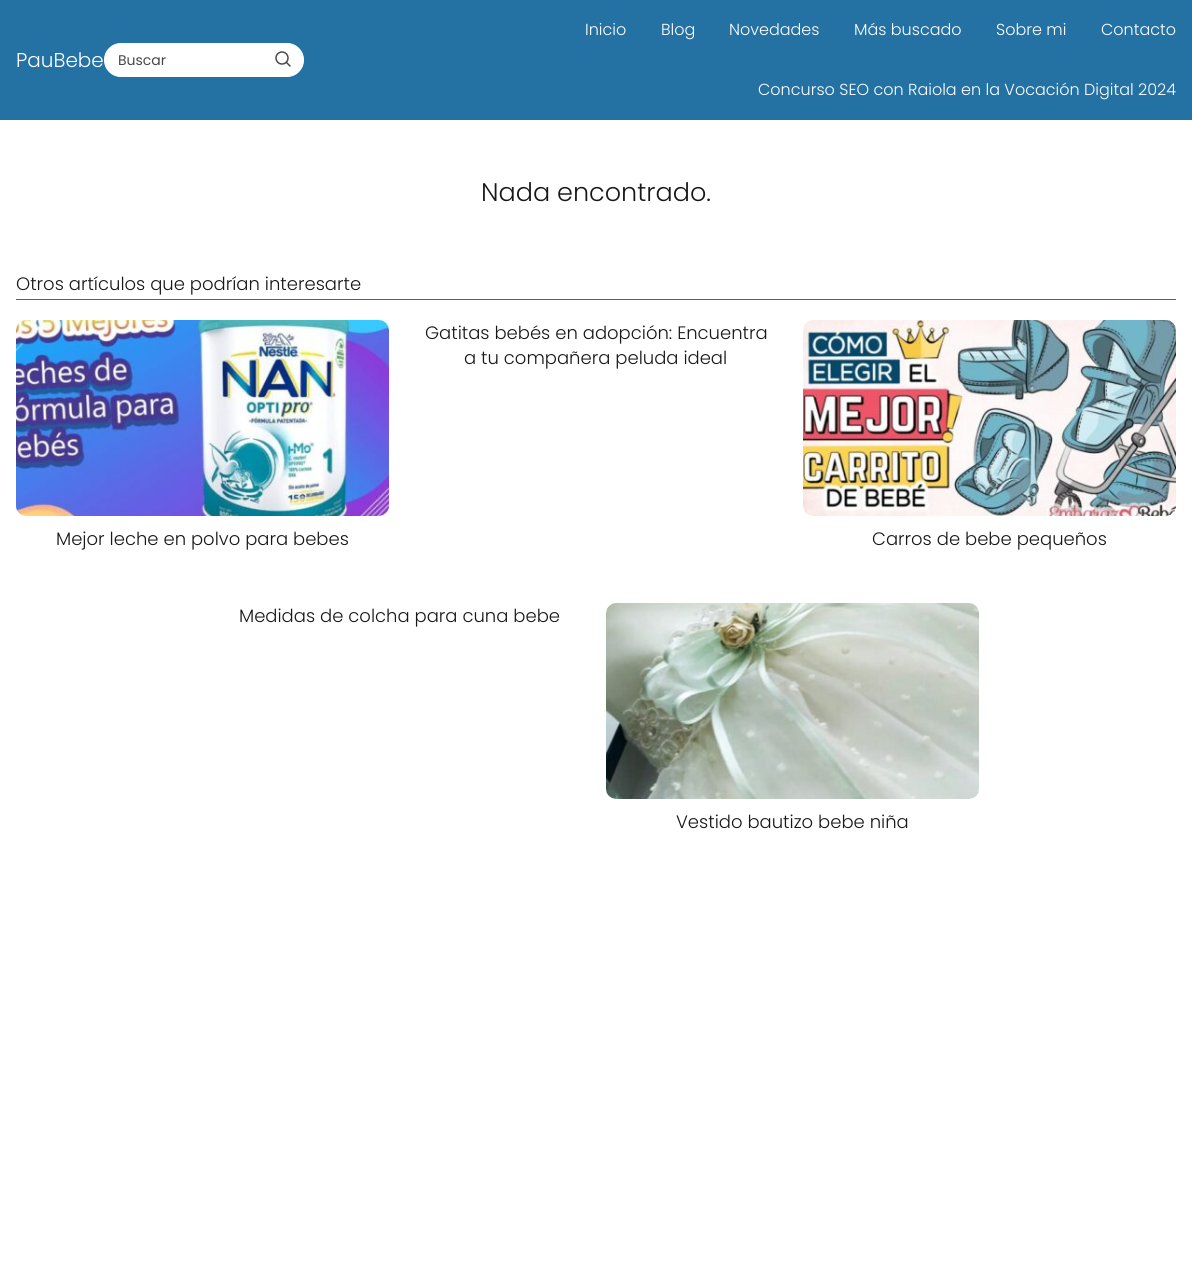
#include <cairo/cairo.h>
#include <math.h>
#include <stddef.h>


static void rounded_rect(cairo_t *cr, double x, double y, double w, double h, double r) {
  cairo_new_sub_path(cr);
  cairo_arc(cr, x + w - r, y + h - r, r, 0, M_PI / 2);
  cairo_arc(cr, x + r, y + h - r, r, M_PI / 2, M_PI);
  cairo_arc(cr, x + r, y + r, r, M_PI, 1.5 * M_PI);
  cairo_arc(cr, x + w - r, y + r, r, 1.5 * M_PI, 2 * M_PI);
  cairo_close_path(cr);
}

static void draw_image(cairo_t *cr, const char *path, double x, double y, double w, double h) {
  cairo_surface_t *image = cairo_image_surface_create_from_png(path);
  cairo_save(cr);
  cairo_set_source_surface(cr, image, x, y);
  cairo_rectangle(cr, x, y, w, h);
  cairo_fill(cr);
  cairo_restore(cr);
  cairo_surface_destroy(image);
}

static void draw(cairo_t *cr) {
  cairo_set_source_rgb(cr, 1, 1, 1);
  cairo_paint(cr);
  cairo_set_source_rgb(cr, 36 / 255.0, 113 / 255.0, 163 / 255.0);
  cairo_rectangle(cr, 0, 0, 1192, 120);
  cairo_fill(cr);
  cairo_set_source_rgb(cr, 1, 1, 1);
  rounded_rect(cr, 104.5, 43.5, 199, 33, 16.5);
  cairo_fill_preserve(cr);
  cairo_set_line_width(cr, 1);
  cairo_stroke(cr);
  cairo_arc(cr, 282, 58, 6, 0, 2 * M_PI);
  cairo_set_source_rgb(cr, 72 / 255.0, 72 / 255.0, 72 / 255.0);
  cairo_set_line_width(cr, 1.5);
  cairo_stroke(cr);
  cairo_new_path(cr);
  cairo_move_to(cr, 290, 66);
  cairo_line_to(cr, 286.5, 62.5);
  cairo_set_line_cap(cr, CAIRO_LINE_CAP_ROUND);
  cairo_set_line_join(cr, CAIRO_LINE_JOIN_ROUND);
  cairo_stroke(cr);
  cairo_set_source_rgb(cr, 36 / 255.0, 113 / 255.0, 163 / 255.0);
  cairo_rectangle(cr, 16, 299, 1160, 1);
  cairo_fill(cr);
  draw_image(cr, "images/1.png", 16, 320, 373, 196);
  draw_image(cr, "images/2.png", 803, 320, 373, 196);
  draw_image(cr, "images/3.png", 606, 603, 373, 196);
  cairo_select_font_face(cr, "Poppins Light", CAIRO_FONT_SLANT_NORMAL, CAIRO_FONT_WEIGHT_NORMAL);
  cairo_set_font_size(cr, 20);
  cairo_set_source_rgb(cr, 1, 1, 1);
  cairo_move_to(cr, 16, 67);
  cairo_show_text(cr, "PauBebe");
  cairo_select_font_face(cr, "Poppins", CAIRO_FONT_SLANT_NORMAL, CAIRO_FONT_WEIGHT_NORMAL);
  cairo_set_font_size(cr, 14);
  cairo_set_source_rgb(cr, 72 / 255.0, 72 / 255.0, 72 / 255.0);
  cairo_move_to(cr, 118, 65);
  cairo_show_text(cr, "Buscar");
  cairo_select_font_face(cr, "Poppins Light", CAIRO_FONT_SLANT_NORMAL, CAIRO_FONT_WEIGHT_NORMAL);
  cairo_set_font_size(cr, 16);
  cairo_set_source_rgb(cr, 1, 1, 1);
  cairo_move_to(cr, 585, 35);
  cairo_show_text(cr, "Inicio");
  cairo_move_to(cr, 661, 35);
  cairo_show_text(cr, "Blog");
  cairo_move_to(cr, 729, 35);
  cairo_show_text(cr, "Novedades");
  cairo_move_to(cr, 854, 35);
  cairo_show_text(cr, "Más buscado");
  cairo_move_to(cr, 996, 35);
  cairo_show_text(cr, "Sobre mi");
  cairo_move_to(cr, 1101, 35);
  cairo_show_text(cr, "Contacto");
  cairo_move_to(cr, 758, 95);
  cairo_show_text(cr, "Concurso SEO con Raiola en la Vocación Digital 2024");
  cairo_set_font_size(cr, 25.5);
  cairo_set_source_rgb(cr, 24 / 255.0, 24 / 255.0, 24 / 255.0);
  cairo_move_to(cr, 481, 201);
  cairo_show_text(cr, "Nada encontrado.");
  cairo_set_font_size(cr, 18);
  cairo_move_to(cr, 16, 290);
  cairo_show_text(cr, "Otros artículos que podrían interesarte");
  cairo_move_to(cr, 425, 339);
  cairo_show_text(cr, "Gatitas bebés en adopción: Encuentra");
  cairo_move_to(cr, 464, 364);
  cairo_show_text(cr, "a tu compañera peluda ideal");
  cairo_move_to(cr, 56, 545);
  cairo_show_text(cr, "Mejor leche en polvo para bebes");
  cairo_move_to(cr, 872, 545);
  cairo_show_text(cr, "Carros de bebe pequeños");
  cairo_move_to(cr, 239, 622);
  cairo_show_text(cr, "Medidas de colcha para cuna bebe");
  cairo_move_to(cr, 676, 828);
  cairo_show_text(cr, "Vestido bautizo bebe niña");
}

int main(void) {
  cairo_surface_t *surface = cairo_image_surface_create(CAIRO_FORMAT_RGB24, 1192, 1275);
  cairo_t *cr = cairo_create(surface);
  cairo_font_options_t *options = cairo_font_options_create();
  cairo_font_options_set_hint_metrics(options, CAIRO_HINT_METRICS_OFF);
  cairo_font_options_set_hint_style(options, CAIRO_HINT_STYLE_NONE);
  cairo_set_font_options(cr, options);
  cairo_set_miter_limit(cr, 4);
  draw(cr);
  cairo_surface_write_to_png(surface, "out.png");
  cairo_font_options_destroy(options);
  cairo_destroy(cr);
  cairo_surface_destroy(surface);
  return 0;
}
